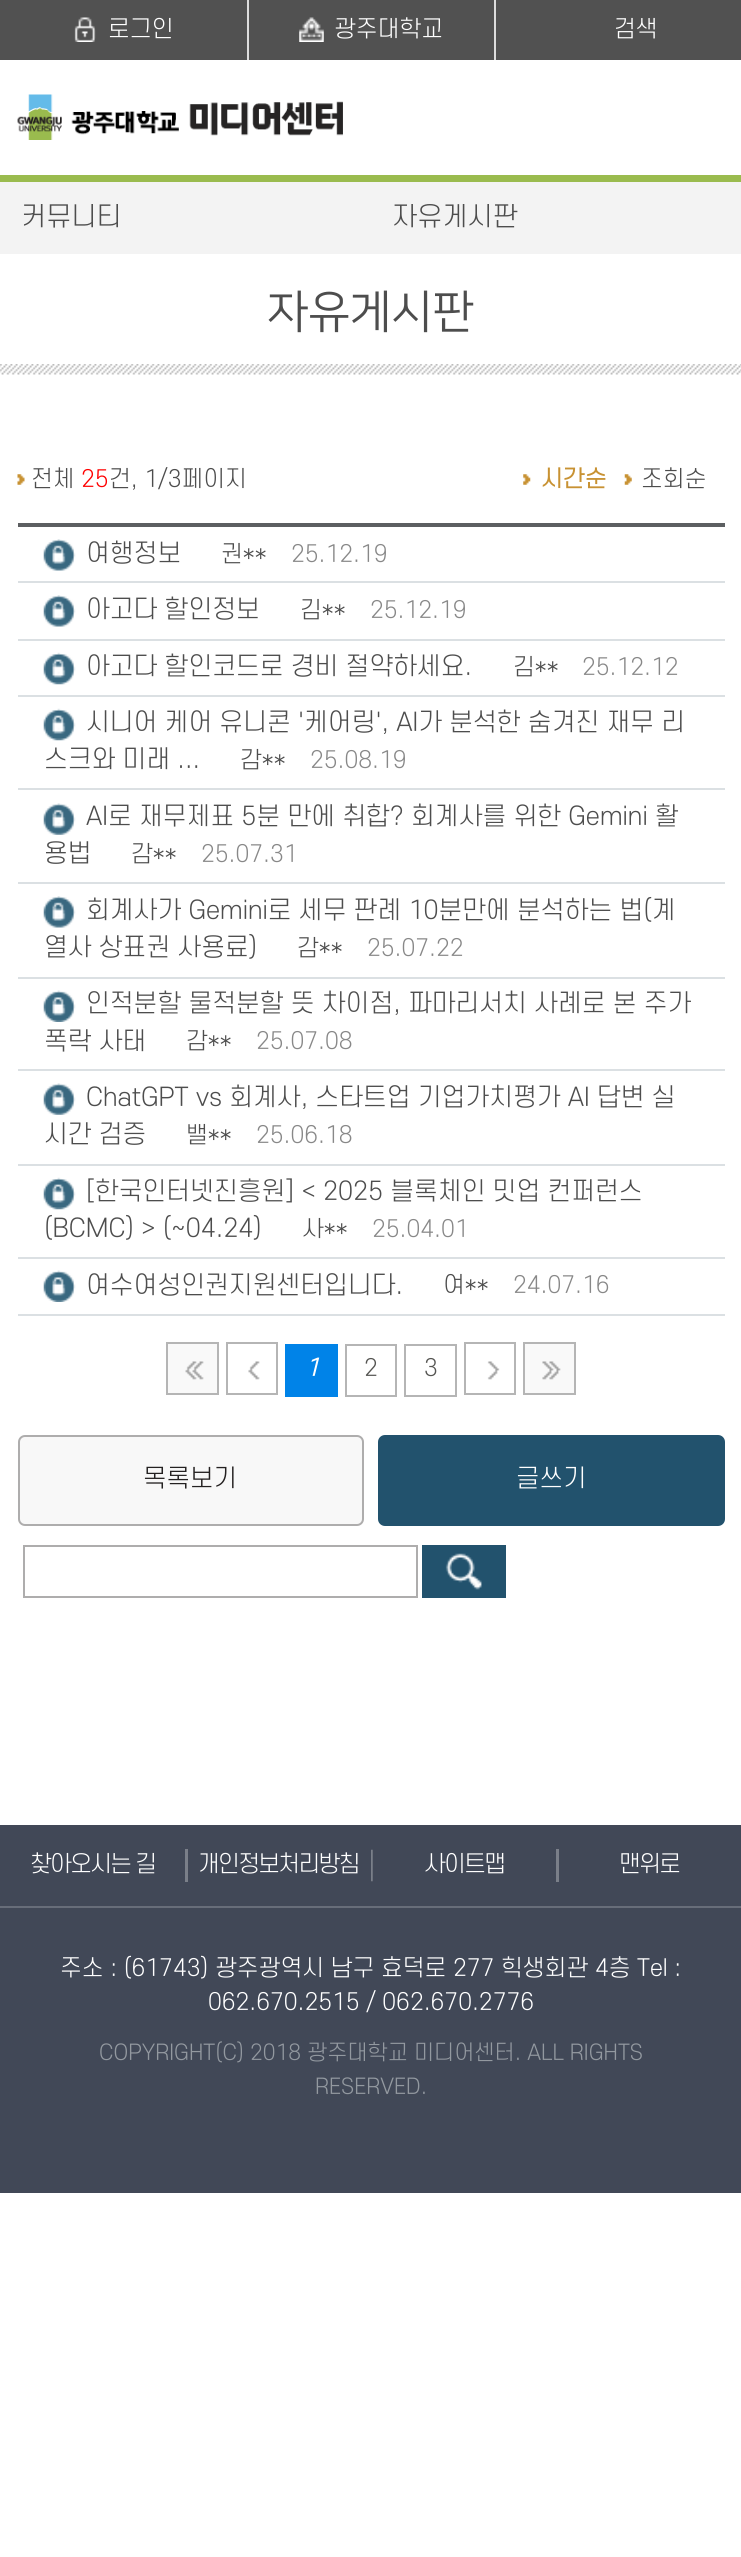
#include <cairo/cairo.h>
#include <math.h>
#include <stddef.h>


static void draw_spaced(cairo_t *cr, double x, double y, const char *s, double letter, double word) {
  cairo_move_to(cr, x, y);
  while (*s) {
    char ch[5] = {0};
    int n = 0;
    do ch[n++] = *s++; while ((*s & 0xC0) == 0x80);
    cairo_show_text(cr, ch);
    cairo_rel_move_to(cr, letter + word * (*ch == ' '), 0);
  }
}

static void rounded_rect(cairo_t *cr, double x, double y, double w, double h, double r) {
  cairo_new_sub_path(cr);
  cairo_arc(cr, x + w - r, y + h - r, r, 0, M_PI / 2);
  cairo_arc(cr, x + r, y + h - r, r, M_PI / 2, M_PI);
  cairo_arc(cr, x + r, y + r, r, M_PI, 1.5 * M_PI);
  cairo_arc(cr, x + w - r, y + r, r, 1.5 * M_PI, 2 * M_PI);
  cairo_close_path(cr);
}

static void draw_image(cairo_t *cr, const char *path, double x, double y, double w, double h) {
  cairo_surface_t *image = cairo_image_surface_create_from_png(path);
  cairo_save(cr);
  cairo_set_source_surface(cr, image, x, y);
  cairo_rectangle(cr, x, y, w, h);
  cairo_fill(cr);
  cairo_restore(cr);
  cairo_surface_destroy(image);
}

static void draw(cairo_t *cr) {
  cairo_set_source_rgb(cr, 1, 1, 1);
  cairo_paint(cr);
  cairo_set_source_rgb(cr, 154 / 255.0, 187 / 255.0, 78 / 255.0);
  cairo_rectangle(cr, 0, 175, 741, 7);
  cairo_fill(cr);
  cairo_set_source_rgb(cr, 81 / 255.0, 81 / 255.0, 81 / 255.0);
  cairo_rectangle(cr, 0, 0, 741, 60);
  cairo_fill(cr);
  draw_image(cr, "images/1.png", 74, 17, 22, 25);
  cairo_set_source_rgb(cr, 221 / 255.0, 221 / 255.0, 221 / 255.0);
  cairo_rectangle(cr, 247, 0, 2, 60);
  cairo_fill(cr);
  draw_image(cr, "images/2.png", 299, 17, 25, 25);
  cairo_rectangle(cr, 494, 0, 2, 60);
  cairo_fill(cr);
  draw_image(cr, "images/3.png", 17, 94, 326, 46);
  cairo_set_source_rgb(cr, 243 / 255.0, 243 / 255.0, 243 / 255.0);
  cairo_rectangle(cr, 0, 182, 741, 72);
  cairo_fill(cr);
  draw_image(cr, "images/4.png", 0, 364, 741, 11);
  draw_image(cr, "images/5.png", 17, 474, 8, 11);
  draw_image(cr, "images/6.png", 523, 474, 8, 11);
  draw_image(cr, "images/7.png", 624, 474, 8, 11);
  cairo_set_source_rgb(cr, 92 / 255.0, 95 / 255.0, 97 / 255.0);
  cairo_rectangle(cr, 18, 523, 707, 4);
  cairo_fill(cr);
  cairo_set_source_rgb(cr, 219 / 255.0, 224 / 255.0, 227 / 255.0);
  cairo_rectangle(cr, 18, 1314, 707, 2);
  cairo_fill(cr);
  draw_image(cr, "images/8.png", 43, 539, 33, 32);
  cairo_rectangle(cr, 18, 581, 707, 2);
  cairo_fill(cr);
  draw_image(cr, "images/8.png", 43, 595, 33, 32);
  cairo_rectangle(cr, 18, 639, 707, 2);
  cairo_fill(cr);
  draw_image(cr, "images/9.png", 43, 652, 33, 33);
  cairo_rectangle(cr, 18, 695, 707, 2);
  cairo_fill(cr);
  draw_image(cr, "images/9.png", 43, 708, 33, 33);
  cairo_rectangle(cr, 18, 788, 707, 2);
  cairo_fill(cr);
  draw_image(cr, "images/10.png", 43, 803, 33, 32);
  cairo_rectangle(cr, 18, 882, 707, 2);
  cairo_fill(cr);
  draw_image(cr, "images/8.png", 43, 896, 33, 32);
  cairo_rectangle(cr, 18, 977, 707, 2);
  cairo_fill(cr);
  draw_image(cr, "images/11.png", 43, 990, 33, 32);
  cairo_rectangle(cr, 18, 1069, 707, 2);
  cairo_fill(cr);
  draw_image(cr, "images/10.png", 43, 1083, 33, 32);
  cairo_rectangle(cr, 18, 1164, 707, 2);
  cairo_fill(cr);
  draw_image(cr, "images/9.png", 43, 1177, 33, 33);
  cairo_rectangle(cr, 18, 1257, 707, 2);
  cairo_fill(cr);
  draw_image(cr, "images/11.png", 43, 1270, 33, 32);
  cairo_set_source_rgb(cr, 249 / 255.0, 249 / 255.0, 249 / 255.0);
  cairo_rectangle(cr, 167, 1343, 51, 51);
  cairo_fill_preserve(cr);
  cairo_set_source_rgb(cr, 181 / 255.0, 181 / 255.0, 181 / 255.0);
  cairo_stroke(cr);
  draw_image(cr, "images/12.png", 185, 1361, 19, 19);
  cairo_rectangle(cr, 227, 1343, 50, 51);
  cairo_stroke(cr);
  draw_image(cr, "images/13.png", 248, 1361, 12, 19);
  cairo_set_source_rgb(cr, 0, 131 / 255.0, 232 / 255.0);
  cairo_rectangle(cr, 285, 1344, 53, 53);
  cairo_fill(cr);
  cairo_rectangle(cr, 346, 1345, 50, 51);
  cairo_set_source_rgb(cr, 181 / 255.0, 181 / 255.0, 181 / 255.0);
  cairo_stroke(cr);
  cairo_rectangle(cr, 405, 1345, 51, 51);
  cairo_stroke(cr);
  cairo_rectangle(cr, 465, 1343, 50, 51);
  cairo_stroke(cr);
  draw_image(cr, "images/14.png", 487, 1361, 13, 19);
  cairo_set_source_rgb(cr, 249 / 255.0, 249 / 255.0, 249 / 255.0);
  cairo_rectangle(cr, 524, 1343, 51, 51);
  cairo_fill_preserve(cr);
  cairo_set_source_rgb(cr, 181 / 255.0, 181 / 255.0, 181 / 255.0);
  cairo_stroke(cr);
  draw_image(cr, "images/15.png", 542, 1361, 19, 19);
  cairo_set_source_rgb(cr, 248 / 255.0, 248 / 255.0, 248 / 255.0);
  rounded_rect(cr, 19, 1436, 344, 89, 6);
  cairo_fill_preserve(cr);
  cairo_set_source_rgb(cr, 174 / 255.0, 173 / 255.0, 173 / 255.0);
  cairo_stroke(cr);
  cairo_set_source_rgb(cr, 34 / 255.0, 82 / 255.0, 109 / 255.0);
  rounded_rect(cr, 379, 1436, 345, 89, 6);
  cairo_fill_preserve(cr);
  cairo_stroke(cr);
  cairo_rectangle(cr, 24, 1546, 393, 51);
  cairo_set_source_rgb(cr, 174 / 255.0, 173 / 255.0, 173 / 255.0);
  cairo_stroke(cr);
  cairo_set_source_rgb(cr, 34 / 255.0, 82 / 255.0, 109 / 255.0);
  cairo_rectangle(cr, 422, 1545, 84, 53);
  cairo_fill(cr);
  draw_image(cr, "images/16.png", 445, 1553, 37, 37);
  cairo_set_source_rgb(cr, 65 / 255.0, 72 / 255.0, 87 / 255.0);
  cairo_rectangle(cr, 0, 1825, 741, 368);
  cairo_fill(cr);
  cairo_set_source_rgb(cr, 103 / 255.0, 109 / 255.0, 121 / 255.0);
  cairo_rectangle(cr, 0, 1906, 741, 2);
  cairo_fill(cr);
  cairo_set_source_rgb(cr, 122 / 255.0, 127 / 255.0, 137 / 255.0);
  cairo_rectangle(cr, 185, 1849, 3, 33);
  cairo_fill(cr);
  draw_image(cr, "images/17.png", 371, 1849, 2, 33);
  cairo_rectangle(cr, 556, 1849, 3, 33);
  cairo_fill(cr);
  cairo_select_font_face(cr, "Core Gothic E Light", CAIRO_FONT_SLANT_NORMAL, CAIRO_FONT_WEIGHT_NORMAL);
  cairo_set_font_size(cr, 22.75);
  cairo_set_source_rgb(cr, 1, 1, 1);
  cairo_move_to(cr, 108, 37);
  cairo_show_text(cr, "로그인");
  cairo_move_to(cr, 334, 37);
  cairo_show_text(cr, "광주대학교");
  cairo_move_to(cr, 614, 37);
  cairo_show_text(cr, "검색");
  cairo_set_font_size(cr, 26.25);
  cairo_set_source_rgb(cr, 77 / 255.0, 77 / 255.0, 77 / 255.0);
  cairo_move_to(cr, 21, 226);
  cairo_show_text(cr, "커뮤니티");
  cairo_move_to(cr, 392, 226);
  cairo_show_text(cr, "자유게시판");
  cairo_select_font_face(cr, "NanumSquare", CAIRO_FONT_SLANT_NORMAL, CAIRO_FONT_WEIGHT_NORMAL);
  cairo_set_font_size(cr, 45.5);
  cairo_move_to(cr, 267, 326);
  cairo_show_text(cr, "자유게시판");
  cairo_select_font_face(cr, "Core Gothic E Light", CAIRO_FONT_SLANT_NORMAL, CAIRO_FONT_WEIGHT_NORMAL);
  cairo_set_font_size(cr, 22.75);
  cairo_move_to(cr, 31, 487);
  cairo_show_text(cr, "전체");
  cairo_set_source_rgb(cr, 1, 0, 0);
  cairo_move_to(cr, 81, 487);
  cairo_show_text(cr, "25");
  cairo_set_source_rgb(cr, 77 / 255.0, 77 / 255.0, 77 / 255.0);
  cairo_move_to(cr, 109, 487);
  cairo_show_text(cr, "건, 1/3페이지");
  cairo_select_font_face(cr, "Core Gothic E", CAIRO_FONT_SLANT_NORMAL, CAIRO_FONT_WEIGHT_BOLD);
  cairo_set_source_rgb(cr, 200 / 255.0, 146 / 255.0, 51 / 255.0);
  cairo_move_to(cr, 541, 487);
  cairo_show_text(cr, "시간순");
  cairo_select_font_face(cr, "Core Gothic E Light", CAIRO_FONT_SLANT_NORMAL, CAIRO_FONT_WEIGHT_NORMAL);
  cairo_set_source_rgb(cr, 77 / 255.0, 77 / 255.0, 77 / 255.0);
  cairo_move_to(cr, 641, 487);
  cairo_show_text(cr, "조회순");
  cairo_set_font_size(cr, 24.8);
  cairo_move_to(cr, 86, 562);
  cairo_show_text(cr, "여행정보");
  cairo_set_font_size(cr, 22.75);
  cairo_move_to(cr, 221, 562);
  cairo_show_text(cr, "권**");
  cairo_set_source_rgb(cr, 136 / 255.0, 136 / 255.0, 136 / 255.0);
  cairo_move_to(cr, 291, 562);
  cairo_show_text(cr, "25.12.19");
  cairo_set_font_size(cr, 24.8);
  cairo_set_source_rgb(cr, 77 / 255.0, 77 / 255.0, 77 / 255.0);
  cairo_move_to(cr, 86, 618);
  cairo_show_text(cr, "아고다 할인정보");
  cairo_set_font_size(cr, 22.75);
  cairo_move_to(cr, 300, 618);
  cairo_show_text(cr, "김**");
  cairo_set_source_rgb(cr, 136 / 255.0, 136 / 255.0, 136 / 255.0);
  cairo_move_to(cr, 370, 618);
  cairo_show_text(cr, "25.12.19");
  cairo_set_font_size(cr, 24.8);
  cairo_set_source_rgb(cr, 77 / 255.0, 77 / 255.0, 77 / 255.0);
  cairo_move_to(cr, 86, 675);
  cairo_show_text(cr, "아고다 할인코드로 경비 절약하세요.");
  cairo_set_font_size(cr, 22.75);
  cairo_move_to(cr, 513, 675);
  cairo_show_text(cr, "김**");
  cairo_set_source_rgb(cr, 136 / 255.0, 136 / 255.0, 136 / 255.0);
  cairo_move_to(cr, 582, 675);
  cairo_show_text(cr, "25.12.12");
  cairo_set_font_size(cr, 24.8);
  cairo_set_source_rgb(cr, 77 / 255.0, 77 / 255.0, 77 / 255.0);
  cairo_move_to(cr, 86, 731);
  cairo_show_text(cr, "시니어 케어 유니콘 '케어링', AI가 분석한 숨겨진 재무 리");
  cairo_move_to(cr, 44, 768);
  cairo_show_text(cr, "스크와 미래 ...");
  cairo_set_font_size(cr, 22.75);
  cairo_move_to(cr, 240, 768);
  cairo_show_text(cr, "감**");
  cairo_set_source_rgb(cr, 136 / 255.0, 136 / 255.0, 136 / 255.0);
  cairo_move_to(cr, 310, 768);
  cairo_show_text(cr, "25.08.19");
  cairo_set_font_size(cr, 24.8);
  cairo_set_source_rgb(cr, 77 / 255.0, 77 / 255.0, 77 / 255.0);
  cairo_move_to(cr, 86, 825);
  cairo_show_text(cr, "AI로 재무제표 5분 만에 취합? 회계사를 위한 Gemini 활");
  cairo_move_to(cr, 44, 862);
  cairo_show_text(cr, "용법");
  cairo_set_font_size(cr, 22.75);
  cairo_move_to(cr, 131, 862);
  cairo_show_text(cr, "감**");
  cairo_set_source_rgb(cr, 136 / 255.0, 136 / 255.0, 136 / 255.0);
  cairo_move_to(cr, 201, 862);
  cairo_show_text(cr, "25.07.31");
  cairo_set_font_size(cr, 24.8);
  cairo_set_source_rgb(cr, 77 / 255.0, 77 / 255.0, 77 / 255.0);
  cairo_move_to(cr, 86, 919);
  cairo_show_text(cr, "회계사가 Gemini로 세무 판례 10분만에 분석하는 법(계");
  cairo_move_to(cr, 44, 956);
  cairo_show_text(cr, "열사 상표권 사용료)");
  cairo_set_font_size(cr, 22.75);
  cairo_move_to(cr, 297, 956);
  cairo_show_text(cr, "감**");
  cairo_set_source_rgb(cr, 136 / 255.0, 136 / 255.0, 136 / 255.0);
  cairo_move_to(cr, 367, 956);
  cairo_show_text(cr, "25.07.22");
  cairo_set_font_size(cr, 24.8);
  cairo_set_source_rgb(cr, 77 / 255.0, 77 / 255.0, 77 / 255.0);
  cairo_move_to(cr, 86, 1012);
  cairo_show_text(cr, "인적분할 물적분할 뜻 차이점, 파마리서치 사례로 본 주가");
  cairo_move_to(cr, 44, 1050);
  cairo_show_text(cr, "폭락 사태");
  cairo_set_font_size(cr, 22.75);
  cairo_move_to(cr, 186, 1049);
  cairo_show_text(cr, "감**");
  cairo_set_source_rgb(cr, 136 / 255.0, 136 / 255.0, 136 / 255.0);
  cairo_move_to(cr, 256, 1049);
  cairo_show_text(cr, "25.07.08");
  cairo_set_font_size(cr, 24.8);
  cairo_set_source_rgb(cr, 77 / 255.0, 77 / 255.0, 77 / 255.0);
  cairo_move_to(cr, 86, 1106);
  cairo_show_text(cr, "ChatGPT vs 회계사, 스타트업 기업가치평가 AI 답변 실");
  cairo_move_to(cr, 44, 1143);
  cairo_show_text(cr, "시간 검증");
  cairo_set_font_size(cr, 22.75);
  cairo_move_to(cr, 186, 1143);
  cairo_show_text(cr, "밸**");
  cairo_set_source_rgb(cr, 136 / 255.0, 136 / 255.0, 136 / 255.0);
  cairo_move_to(cr, 256, 1143);
  cairo_show_text(cr, "25.06.18");
  cairo_set_font_size(cr, 24.8);
  cairo_set_source_rgb(cr, 77 / 255.0, 77 / 255.0, 77 / 255.0);
  cairo_move_to(cr, 86, 1200);
  cairo_show_text(cr, "[한국인터넷진흥원] < 2025 블록체인 밋업 컨퍼런스");
  cairo_move_to(cr, 44, 1237);
  cairo_show_text(cr, "(BCMC) > (~04.24)");
  cairo_set_font_size(cr, 22.75);
  cairo_move_to(cr, 302, 1237);
  cairo_show_text(cr, "사**");
  cairo_set_source_rgb(cr, 136 / 255.0, 136 / 255.0, 136 / 255.0);
  cairo_move_to(cr, 372, 1237);
  cairo_show_text(cr, "25.04.01");
  cairo_set_font_size(cr, 24.8);
  cairo_set_source_rgb(cr, 77 / 255.0, 77 / 255.0, 77 / 255.0);
  cairo_move_to(cr, 86, 1294);
  cairo_show_text(cr, "여수여성인권지원센터입니다.");
  cairo_set_font_size(cr, 22.75);
  cairo_move_to(cr, 443, 1293);
  cairo_show_text(cr, "여**");
  cairo_set_source_rgb(cr, 136 / 255.0, 136 / 255.0, 136 / 255.0);
  cairo_move_to(cr, 513, 1293);
  cairo_show_text(cr, "24.07.16");
  cairo_select_font_face(cr, "Core Gothic E", CAIRO_FONT_SLANT_ITALIC, CAIRO_FONT_WEIGHT_BOLD);
  cairo_set_source_rgb(cr, 1, 1, 1);
  cairo_move_to(cr, 305, 1376);
  cairo_show_text(cr, "1");
  cairo_select_font_face(cr, "Core Gothic E Light", CAIRO_FONT_SLANT_NORMAL, CAIRO_FONT_WEIGHT_NORMAL);
  cairo_set_source_rgb(cr, 85 / 255.0, 85 / 255.0, 82 / 255.0);
  cairo_move_to(cr, 364, 1376);
  cairo_show_text(cr, "2");
  cairo_move_to(cr, 424, 1376);
  cairo_show_text(cr, "3");
  cairo_set_font_size(cr, 24.5);
  cairo_set_source_rgb(cr, 36 / 255.0, 33 / 255.0, 33 / 255.0);
  cairo_move_to(cr, 143, 1487);
  cairo_show_text(cr, "목록보기");
  cairo_set_source_rgb(cr, 1, 1, 1);
  cairo_move_to(cr, 516, 1487);
  cairo_show_text(cr, "글쓰기");
  cairo_set_font_size(cr, 22.75);
  draw_spaced(cr, 30, 1872, "찾아오시는 길", -1.75, 0);
  draw_spaced(cr, 198, 1872, "개인정보처리방침", -1.75, 0);
  draw_spaced(cr, 424, 1872, "사이트맵", -1.75, 0);
  draw_spaced(cr, 619, 1872, "맨위로", -1.75, 0);
  cairo_move_to(cr, 60, 1976);
  cairo_show_text(cr, "주소 : (61743) 광주광역시 남구 효덕로 277 힉생회관 4층 Tel :");
  cairo_move_to(cr, 208, 2010);
  cairo_show_text(cr, "062.670.2515 / 062.670.2776");
  cairo_set_font_size(cr, 21);
  cairo_set_source_rgb(cr, 147 / 255.0, 153 / 255.0, 160 / 255.0);
  cairo_move_to(cr, 99, 2060);
  cairo_show_text(cr, "COPYRIGHT(C) 2018 광주대학교 미디어센터. ALL RIGHTS");
  cairo_move_to(cr, 315, 2094);
  cairo_show_text(cr, "RESERVED.");
}

int main(void) {
  cairo_surface_t *surface = cairo_image_surface_create(CAIRO_FORMAT_RGB24, 741, 2557);
  cairo_t *cr = cairo_create(surface);
  cairo_font_options_t *options = cairo_font_options_create();
  cairo_font_options_set_hint_metrics(options, CAIRO_HINT_METRICS_OFF);
  cairo_font_options_set_hint_style(options, CAIRO_HINT_STYLE_NONE);
  cairo_set_font_options(cr, options);
  cairo_set_miter_limit(cr, 4);
  draw(cr);
  cairo_surface_write_to_png(surface, "out.png");
  cairo_font_options_destroy(options);
  cairo_destroy(cr);
  cairo_surface_destroy(surface);
  return 0;
}
